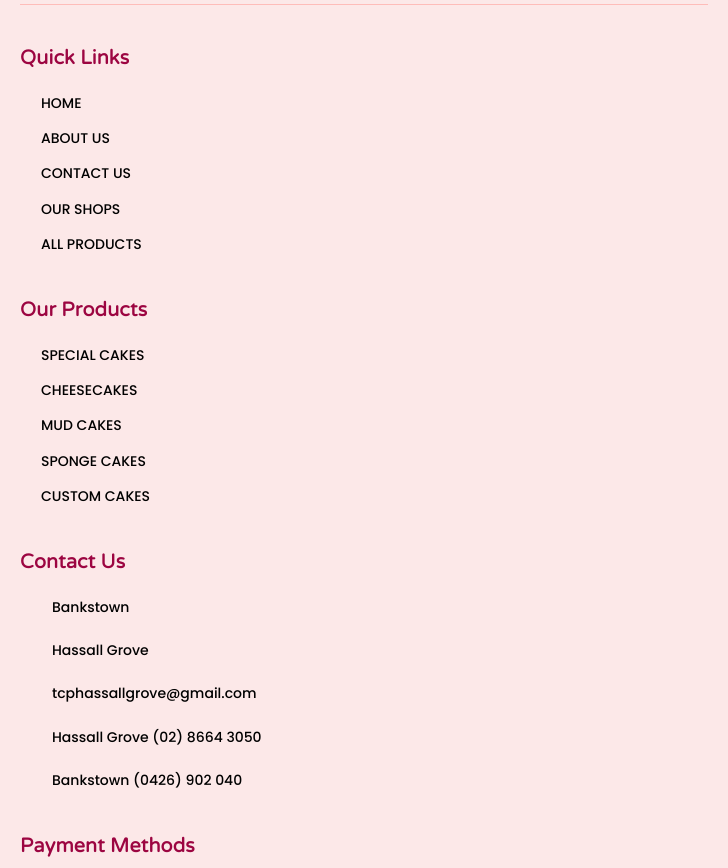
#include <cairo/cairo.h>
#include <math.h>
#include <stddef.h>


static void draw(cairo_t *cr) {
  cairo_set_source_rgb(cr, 252 / 255.0, 232 / 255.0, 232 / 255.0);
  cairo_paint(cr);
  cairo_set_source_rgb(cr, 254 / 255.0, 188 / 255.0, 185 / 255.0);
  cairo_rectangle(cr, 20, 4, 688, 1);
  cairo_fill(cr);
  cairo_select_font_face(cr, "Varela Round", CAIRO_FONT_SLANT_NORMAL, CAIRO_FONT_WEIGHT_BOLD);
  cairo_set_font_size(cr, 20);
  cairo_set_source_rgb(cr, 156 / 255.0, 5 / 255.0, 65 / 255.0);
  cairo_move_to(cr, 20, 64);
  cairo_show_text(cr, "Quick Links");
  cairo_select_font_face(cr, "Poppins Medium", CAIRO_FONT_SLANT_NORMAL, CAIRO_FONT_WEIGHT_NORMAL);
  cairo_set_font_size(cr, 14);
  cairo_set_source_rgb(cr, 0, 0, 0);
  cairo_move_to(cr, 41, 108);
  cairo_show_text(cr, "HOME");
  cairo_move_to(cr, 41, 143);
  cairo_show_text(cr, "ABOUT US");
  cairo_move_to(cr, 41, 178);
  cairo_show_text(cr, "CONTACT US");
  cairo_move_to(cr, 41, 214);
  cairo_show_text(cr, "OUR SHOPS");
  cairo_move_to(cr, 41, 249);
  cairo_show_text(cr, "ALL PRODUCTS");
  cairo_select_font_face(cr, "Varela Round", CAIRO_FONT_SLANT_NORMAL, CAIRO_FONT_WEIGHT_BOLD);
  cairo_set_font_size(cr, 20);
  cairo_set_source_rgb(cr, 156 / 255.0, 5 / 255.0, 65 / 255.0);
  cairo_move_to(cr, 20, 316);
  cairo_show_text(cr, "Our Products");
  cairo_select_font_face(cr, "Poppins Medium", CAIRO_FONT_SLANT_NORMAL, CAIRO_FONT_WEIGHT_NORMAL);
  cairo_set_font_size(cr, 14);
  cairo_set_source_rgb(cr, 0, 0, 0);
  cairo_move_to(cr, 41, 360);
  cairo_show_text(cr, "SPECIAL CAKES");
  cairo_move_to(cr, 41, 395);
  cairo_show_text(cr, "CHEESECAKES");
  cairo_move_to(cr, 41, 430);
  cairo_show_text(cr, "MUD CAKES");
  cairo_move_to(cr, 41, 466);
  cairo_show_text(cr, "SPONGE CAKES");
  cairo_move_to(cr, 41, 501);
  cairo_show_text(cr, "CUSTOM CAKES");
  cairo_select_font_face(cr, "Varela Round", CAIRO_FONT_SLANT_NORMAL, CAIRO_FONT_WEIGHT_BOLD);
  cairo_set_font_size(cr, 20);
  cairo_set_source_rgb(cr, 156 / 255.0, 5 / 255.0, 65 / 255.0);
  cairo_move_to(cr, 20, 568);
  cairo_show_text(cr, "Contact Us");
  cairo_select_font_face(cr, "Poppins Medium", CAIRO_FONT_SLANT_NORMAL, CAIRO_FONT_WEIGHT_NORMAL);
  cairo_set_font_size(cr, 14);
  cairo_set_source_rgb(cr, 0, 0, 0);
  cairo_move_to(cr, 52, 612);
  cairo_show_text(cr, "Bankstown");
  cairo_move_to(cr, 52, 655);
  cairo_show_text(cr, "Hassall Grove");
  cairo_move_to(cr, 52, 698);
  cairo_show_text(cr, "tcphassallgrove@gmail.com");
  cairo_move_to(cr, 52, 742);
  cairo_show_text(cr, "Hassall Grove (02) 8664 3050");
  cairo_move_to(cr, 52, 785);
  cairo_show_text(cr, "Bankstown (0426) 902 040");
  cairo_select_font_face(cr, "Varela Round", CAIRO_FONT_SLANT_NORMAL, CAIRO_FONT_WEIGHT_BOLD);
  cairo_set_font_size(cr, 20);
  cairo_set_source_rgb(cr, 156 / 255.0, 5 / 255.0, 65 / 255.0);
  cairo_move_to(cr, 20, 852);
  cairo_show_text(cr, "Payment Methods");
}

int main(void) {
  cairo_surface_t *surface = cairo_image_surface_create(CAIRO_FORMAT_RGB24, 728, 868);
  cairo_t *cr = cairo_create(surface);
  cairo_font_options_t *options = cairo_font_options_create();
  cairo_font_options_set_hint_metrics(options, CAIRO_HINT_METRICS_OFF);
  cairo_font_options_set_hint_style(options, CAIRO_HINT_STYLE_NONE);
  cairo_set_font_options(cr, options);
  cairo_set_miter_limit(cr, 4);
  draw(cr);
  cairo_surface_write_to_png(surface, "out.png");
  cairo_font_options_destroy(options);
  cairo_destroy(cr);
  cairo_surface_destroy(surface);
  return 0;
}
